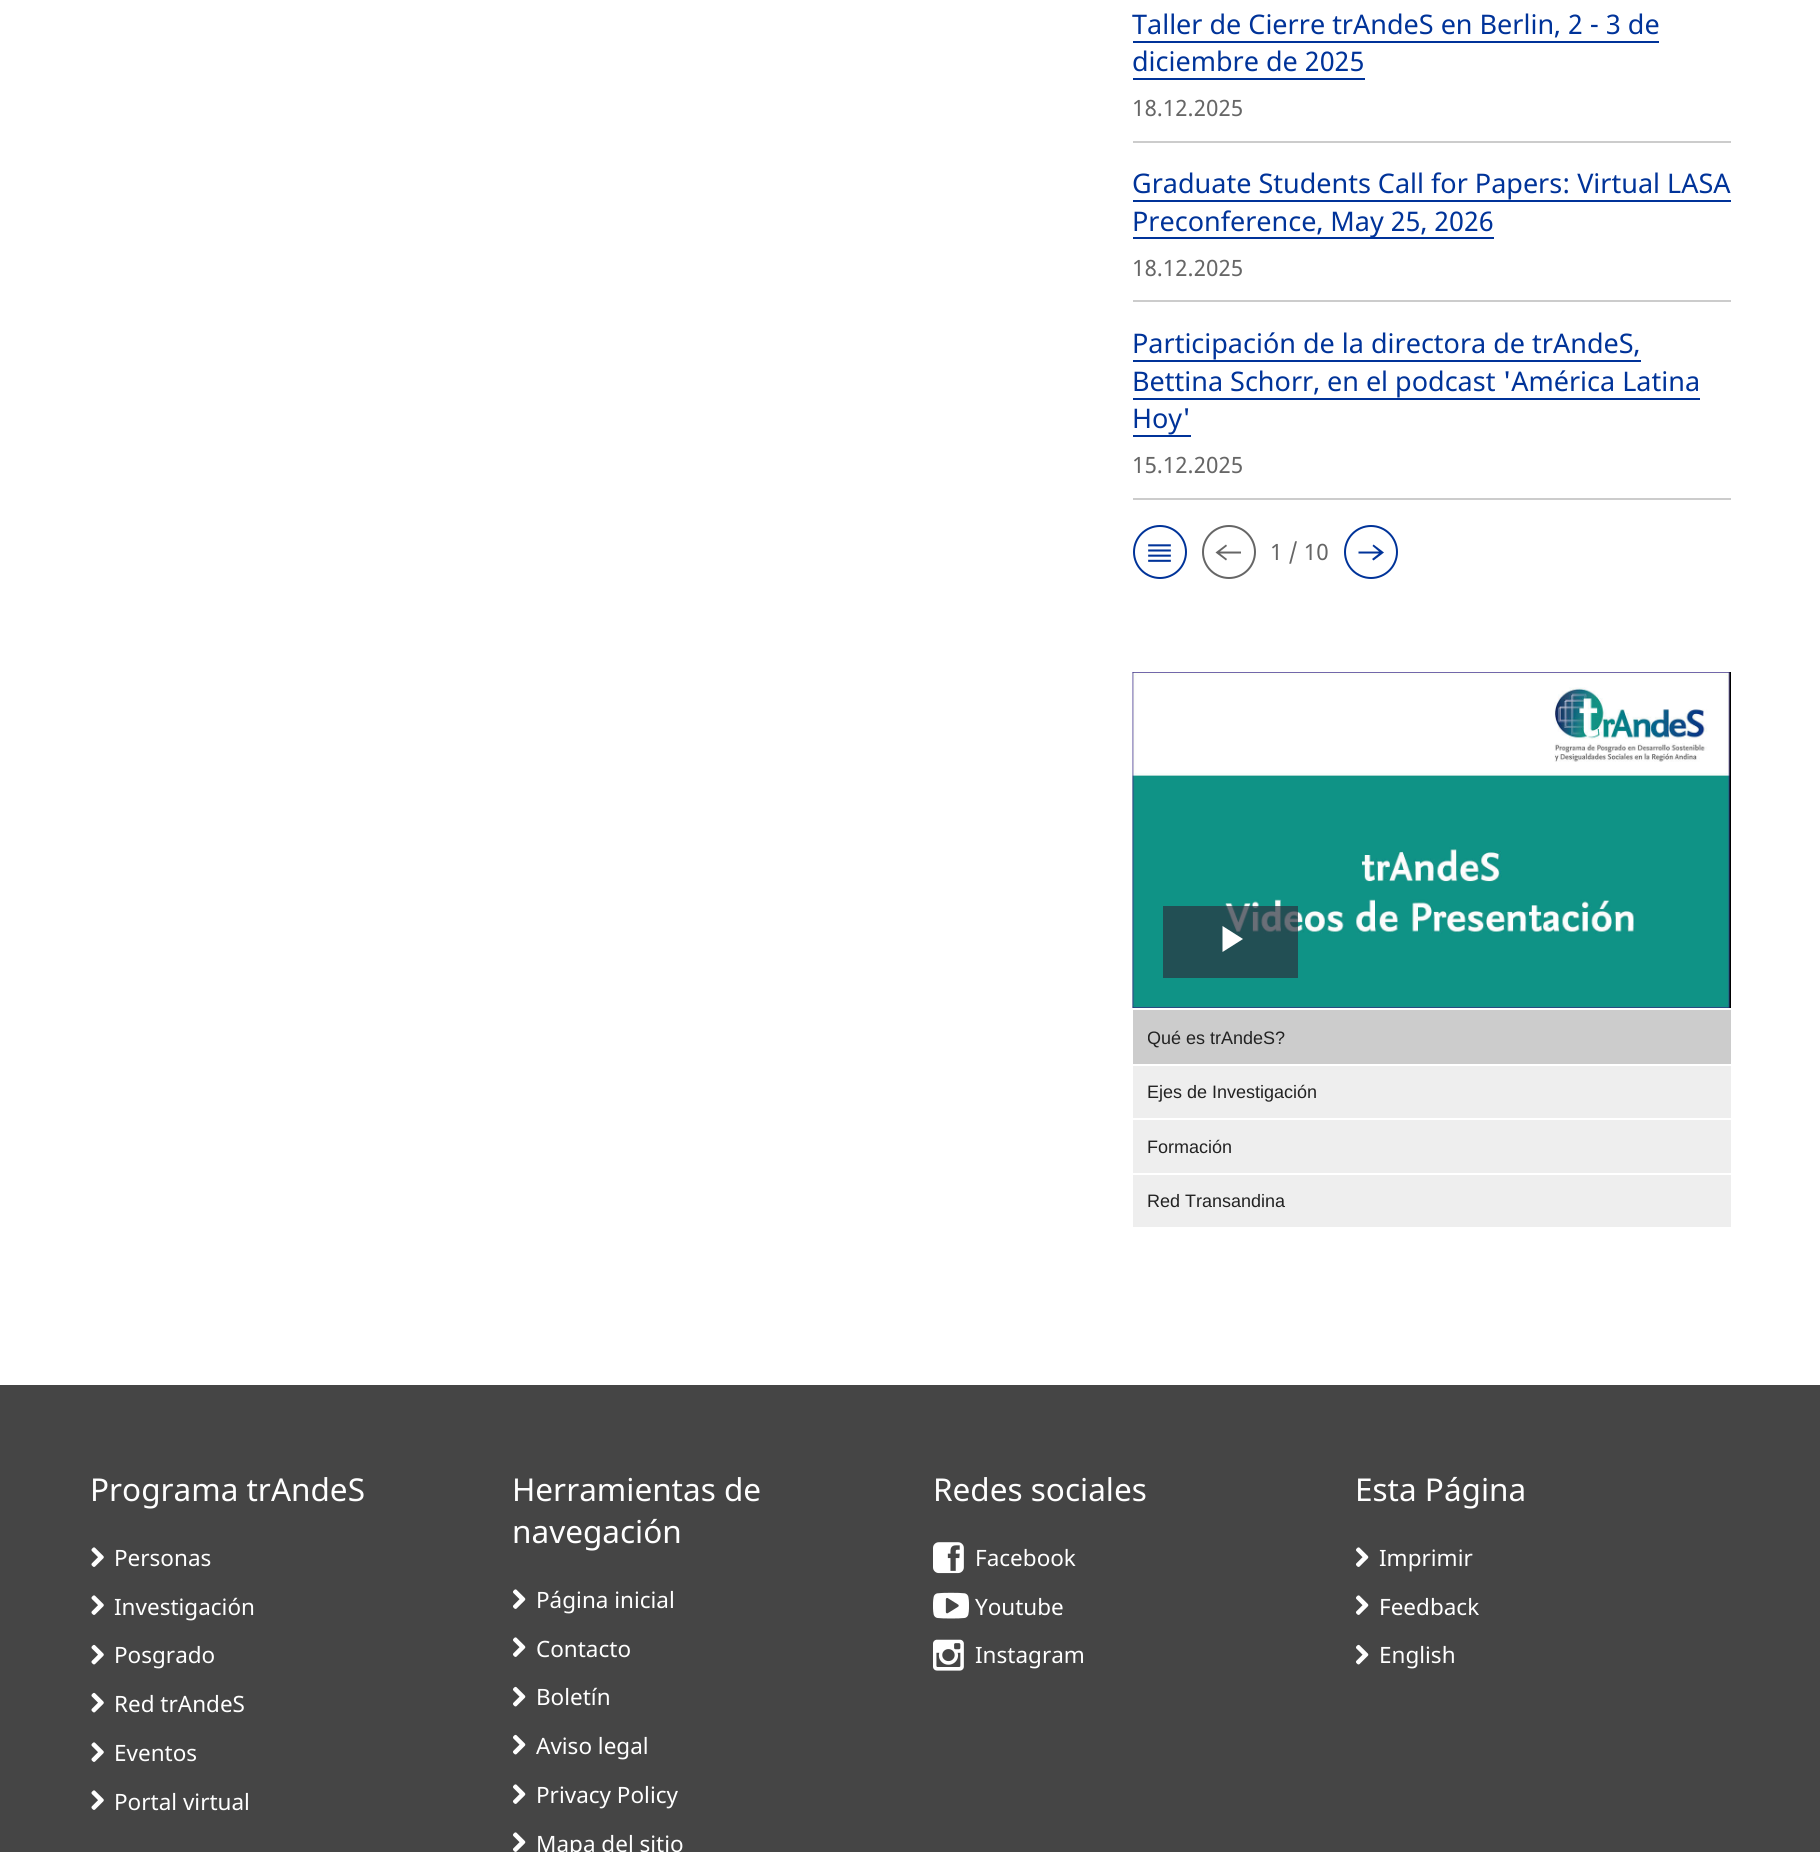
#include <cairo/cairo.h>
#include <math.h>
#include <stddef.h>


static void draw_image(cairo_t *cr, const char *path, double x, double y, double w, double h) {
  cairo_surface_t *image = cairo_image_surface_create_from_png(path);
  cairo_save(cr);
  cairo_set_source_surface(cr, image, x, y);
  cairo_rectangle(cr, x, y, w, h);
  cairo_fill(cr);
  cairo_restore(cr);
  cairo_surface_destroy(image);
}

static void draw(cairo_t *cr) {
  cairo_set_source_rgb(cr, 1, 1, 1);
  cairo_paint(cr);
  cairo_set_source_rgb(cr, 204 / 255.0, 204 / 255.0, 204 / 255.0);
  cairo_rectangle(cr, 1133, 141, 598, 2);
  cairo_fill(cr);
  cairo_set_source_rgb(cr, 0, 51 / 255.0, 153 / 255.0);
  cairo_rectangle(cr, 1133, 41, 526, 2);
  cairo_fill(cr);
  cairo_rectangle(cr, 1133, 78, 232, 2);
  cairo_fill(cr);
  cairo_set_source_rgb(cr, 204 / 255.0, 204 / 255.0, 204 / 255.0);
  cairo_rectangle(cr, 1133, 300, 598, 2);
  cairo_fill(cr);
  cairo_set_source_rgb(cr, 0, 51 / 255.0, 153 / 255.0);
  cairo_rectangle(cr, 1133, 200, 598, 2);
  cairo_fill(cr);
  cairo_rectangle(cr, 1133, 237, 361, 2);
  cairo_fill(cr);
  cairo_set_source_rgb(cr, 204 / 255.0, 204 / 255.0, 204 / 255.0);
  cairo_rectangle(cr, 1133, 498, 598, 2);
  cairo_fill(cr);
  cairo_set_source_rgb(cr, 0, 51 / 255.0, 153 / 255.0);
  cairo_rectangle(cr, 1133, 360, 508, 2);
  cairo_fill(cr);
  cairo_rectangle(cr, 1133, 398, 567, 2);
  cairo_fill(cr);
  cairo_rectangle(cr, 1133, 435, 58, 2);
  cairo_fill(cr);
  cairo_arc(cr, 1160, 552, 26, 0, 2 * M_PI);
  cairo_stroke(cr);
  draw_image(cr, "images/1.png", 1148, 544, 23, 18);
  cairo_arc(cr, 1229, 552, 26, 0, 2 * M_PI);
  cairo_set_source_rgb(cr, 102 / 255.0, 102 / 255.0, 102 / 255.0);
  cairo_stroke(cr);
  cairo_new_path(cr);
  cairo_move_to(cr, 1241, 551.5);
  cairo_line_to(cr, 1220, 551.5);
  cairo_line_to(cr, 1227, 546);
  cairo_line_to(cr, 1226, 544.5);
  cairo_line_to(cr, 1215.5, 552.5);
  cairo_line_to(cr, 1226, 560.5);
  cairo_line_to(cr, 1227, 559);
  cairo_line_to(cr, 1220, 553.5);
  cairo_line_to(cr, 1241, 553.5);
  cairo_close_path(cr);
  cairo_fill(cr);
  cairo_arc(cr, 1371, 552, 26, 0, 2 * M_PI);
  cairo_set_source_rgb(cr, 0, 51 / 255.0, 153 / 255.0);
  cairo_stroke(cr);
  cairo_new_path(cr);
  cairo_move_to(cr, 1373.5, 544.5);
  cairo_line_to(cr, 1372.5, 546);
  cairo_line_to(cr, 1379, 551.5);
  cairo_line_to(cr, 1358.5, 551.5);
  cairo_line_to(cr, 1358.5, 553.5);
  cairo_line_to(cr, 1379, 553.5);
  cairo_line_to(cr, 1372, 559);
  cairo_line_to(cr, 1373.5, 560.5);
  cairo_line_to(cr, 1384, 552.5);
  cairo_close_path(cr);
  cairo_fill(cr);
  draw_image(cr, "images/2.png", 1132, 672, 1, 336);
  cairo_set_source_rgb(cr, 0, 0, 0);
  cairo_rectangle(cr, 1729, 672, 2, 336);
  cairo_fill(cr);
  draw_image(cr, "images/3.png", 1132, 672, 598, 336);
  cairo_set_source_rgba(cr, 43 / 255.0, 51 / 255.0, 63 / 255.0, 0.7);
  cairo_rectangle(cr, 1163, 906, 135, 72);
  cairo_fill(cr);
  cairo_set_source_rgb(cr, 1, 1, 1);
  cairo_new_path(cr);
  cairo_move_to(cr, 1222.5, 926);
  cairo_line_to(cr, 1222.5, 952);
  cairo_line_to(cr, 1243, 939);
  cairo_close_path(cr);
  cairo_fill(cr);
  cairo_set_source_rgb(cr, 238 / 255.0, 238 / 255.0, 238 / 255.0);
  cairo_rectangle(cr, 1133, 1066, 598, 161);
  cairo_fill(cr);
  cairo_set_source_rgb(cr, 204 / 255.0, 204 / 255.0, 204 / 255.0);
  cairo_rectangle(cr, 1133, 1010, 598, 54);
  cairo_fill(cr);
  cairo_set_source_rgb(cr, 1, 1, 1);
  cairo_rectangle(cr, 1133, 1118, 598, 2);
  cairo_fill(cr);
  cairo_rectangle(cr, 1133, 1173, 598, 2);
  cairo_fill(cr);
  cairo_set_source_rgb(cr, 69 / 255.0, 69 / 255.0, 69 / 255.0);
  cairo_rectangle(cr, 0, 1385, 1820, 467);
  cairo_fill(cr);
  draw_image(cr, "images/4.png", 91, 1547, 13, 20);
  draw_image(cr, "images/4.png", 91, 1595, 13, 20);
  draw_image(cr, "images/5.png", 91, 1644, 13, 21);
  draw_image(cr, "images/5.png", 91, 1692, 13, 21);
  draw_image(cr, "images/4.png", 91, 1742, 13, 20);
  draw_image(cr, "images/4.png", 91, 1790, 13, 20);
  draw_image(cr, "images/6.png", 513, 1589, 13, 20);
  draw_image(cr, "images/6.png", 513, 1637, 13, 20);
  draw_image(cr, "images/7.png", 513, 1686, 13, 21);
  draw_image(cr, "images/7.png", 513, 1734, 13, 21);
  draw_image(cr, "images/6.png", 513, 1784, 13, 20);
  draw_image(cr, "images/6.png", 513, 1832, 13, 20);
  draw_image(cr, "images/8.png", 933, 1542, 31, 32);
  draw_image(cr, "images/9.png", 933, 1592, 36, 27);
  draw_image(cr, "images/10.png", 933, 1639, 31, 32);
  draw_image(cr, "images/6.png", 1356, 1547, 13, 20);
  draw_image(cr, "images/6.png", 1356, 1595, 13, 20);
  draw_image(cr, "images/7.png", 1356, 1644, 13, 21);
  cairo_select_font_face(cr, "Noto Sans", CAIRO_FONT_SLANT_NORMAL, CAIRO_FONT_WEIGHT_NORMAL);
  cairo_set_font_size(cr, 27);
  cairo_set_source_rgb(cr, 0, 51 / 255.0, 153 / 255.0);
  cairo_move_to(cr, 1132, 34);
  cairo_show_text(cr, "Taller de Cierre trAndeS en Berlin, 2 - 3 de");
  cairo_move_to(cr, 1132, 71);
  cairo_show_text(cr, "diciembre de 2025");
  cairo_set_font_size(cr, 22.5);
  cairo_set_source_rgb(cr, 102 / 255.0, 102 / 255.0, 102 / 255.0);
  cairo_move_to(cr, 1132, 116);
  cairo_show_text(cr, "18.12.2025");
  cairo_set_font_size(cr, 27);
  cairo_set_source_rgb(cr, 0, 51 / 255.0, 153 / 255.0);
  cairo_move_to(cr, 1132, 193);
  cairo_show_text(cr, "Graduate Students Call for Papers: Virtual LASA");
  cairo_move_to(cr, 1132, 231);
  cairo_show_text(cr, "Preconference, May 25, 2026");
  cairo_set_font_size(cr, 22.5);
  cairo_set_source_rgb(cr, 102 / 255.0, 102 / 255.0, 102 / 255.0);
  cairo_move_to(cr, 1132, 276);
  cairo_show_text(cr, "18.12.2025");
  cairo_set_font_size(cr, 27);
  cairo_set_source_rgb(cr, 0, 51 / 255.0, 153 / 255.0);
  cairo_move_to(cr, 1132, 353);
  cairo_show_text(cr, "Participación de la directora de trAndeS,");
  cairo_move_to(cr, 1132, 391);
  cairo_show_text(cr, "Bettina Schorr, en el podcast 'América Latina");
  cairo_move_to(cr, 1132, 428);
  cairo_show_text(cr, "Hoy'");
  cairo_set_font_size(cr, 22.5);
  cairo_set_source_rgb(cr, 102 / 255.0, 102 / 255.0, 102 / 255.0);
  cairo_move_to(cr, 1132, 473);
  cairo_show_text(cr, "15.12.2025");
  cairo_move_to(cr, 1270, 560);
  cairo_show_text(cr, "1 / 10");
  cairo_save(cr);
  cairo_rectangle(cr, 1148, 1025, 513, 27);
  cairo_clip(cr);
  cairo_select_font_face(cr, "Liberation Sans", CAIRO_FONT_SLANT_NORMAL, CAIRO_FONT_WEIGHT_NORMAL);
  cairo_set_font_size(cr, 18);
  cairo_set_source_rgb(cr, 34 / 255.0, 34 / 255.0, 34 / 255.0);
  cairo_move_to(cr, 1147, 1044);
  cairo_show_text(cr, "Qué es trAndeS?");
  cairo_restore(cr);
  cairo_select_font_face(cr, "Liberation Sans", CAIRO_FONT_SLANT_NORMAL, CAIRO_FONT_WEIGHT_NORMAL);
  cairo_set_font_size(cr, 18);
  cairo_set_source_rgb(cr, 34 / 255.0, 34 / 255.0, 34 / 255.0);
  cairo_move_to(cr, 1147, 1098);
  cairo_show_text(cr, "Ejes de Investigación");
  cairo_move_to(cr, 1147, 1153);
  cairo_show_text(cr, "Formación");
  cairo_move_to(cr, 1147, 1207);
  cairo_show_text(cr, "Red Transandina");
  cairo_select_font_face(cr, "Noto Sans", CAIRO_FONT_SLANT_NORMAL, CAIRO_FONT_WEIGHT_NORMAL);
  cairo_set_font_size(cr, 31.5);
  cairo_set_source_rgb(cr, 1, 1, 1);
  cairo_move_to(cr, 90, 1501);
  cairo_show_text(cr, "Programa trAndeS");
  cairo_set_font_size(cr, 22.5);
  cairo_move_to(cr, 114, 1566);
  cairo_show_text(cr, "Personas");
  cairo_move_to(cr, 114, 1615);
  cairo_show_text(cr, "Investigación");
  cairo_move_to(cr, 114, 1663);
  cairo_show_text(cr, "Posgrado");
  cairo_move_to(cr, 114, 1712);
  cairo_show_text(cr, "Red trAndeS");
  cairo_move_to(cr, 114, 1761);
  cairo_show_text(cr, "Eventos");
  cairo_move_to(cr, 114, 1810);
  cairo_show_text(cr, "Portal virtual");
  cairo_set_font_size(cr, 31.5);
  cairo_move_to(cr, 512, 1501);
  cairo_show_text(cr, "Herramientas de");
  cairo_move_to(cr, 512, 1543);
  cairo_show_text(cr, "navegación");
  cairo_set_font_size(cr, 22.5);
  cairo_move_to(cr, 536, 1608);
  cairo_show_text(cr, "Página inicial");
  cairo_move_to(cr, 536, 1657);
  cairo_show_text(cr, "Contacto");
  cairo_move_to(cr, 536, 1705);
  cairo_show_text(cr, "Boletín");
  cairo_move_to(cr, 536, 1754);
  cairo_show_text(cr, "Aviso legal");
  cairo_move_to(cr, 536, 1803);
  cairo_show_text(cr, "Privacy Policy");
  cairo_move_to(cr, 536, 1852);
  cairo_show_text(cr, "Mapa del sitio");
  cairo_set_font_size(cr, 31.5);
  cairo_move_to(cr, 933, 1501);
  cairo_show_text(cr, "Redes sociales");
  cairo_set_font_size(cr, 22.5);
  cairo_move_to(cr, 975, 1566);
  cairo_show_text(cr, "Facebook");
  cairo_move_to(cr, 975, 1615);
  cairo_show_text(cr, "Youtube");
  cairo_move_to(cr, 975, 1663);
  cairo_show_text(cr, "Instagram");
  cairo_set_font_size(cr, 31.5);
  cairo_move_to(cr, 1355, 1501);
  cairo_show_text(cr, "Esta Página");
  cairo_set_font_size(cr, 22.5);
  cairo_move_to(cr, 1379, 1566);
  cairo_show_text(cr, "Imprimir");
  cairo_move_to(cr, 1379, 1615);
  cairo_show_text(cr, "Feedback");
  cairo_move_to(cr, 1379, 1663);
  cairo_show_text(cr, "English");
}

int main(void) {
  cairo_surface_t *surface = cairo_image_surface_create(CAIRO_FORMAT_RGB24, 1820, 1852);
  cairo_t *cr = cairo_create(surface);
  cairo_font_options_t *options = cairo_font_options_create();
  cairo_font_options_set_hint_metrics(options, CAIRO_HINT_METRICS_OFF);
  cairo_font_options_set_hint_style(options, CAIRO_HINT_STYLE_NONE);
  cairo_set_font_options(cr, options);
  cairo_set_miter_limit(cr, 4);
  draw(cr);
  cairo_surface_write_to_png(surface, "out.png");
  cairo_font_options_destroy(options);
  cairo_destroy(cr);
  cairo_surface_destroy(surface);
  return 0;
}
